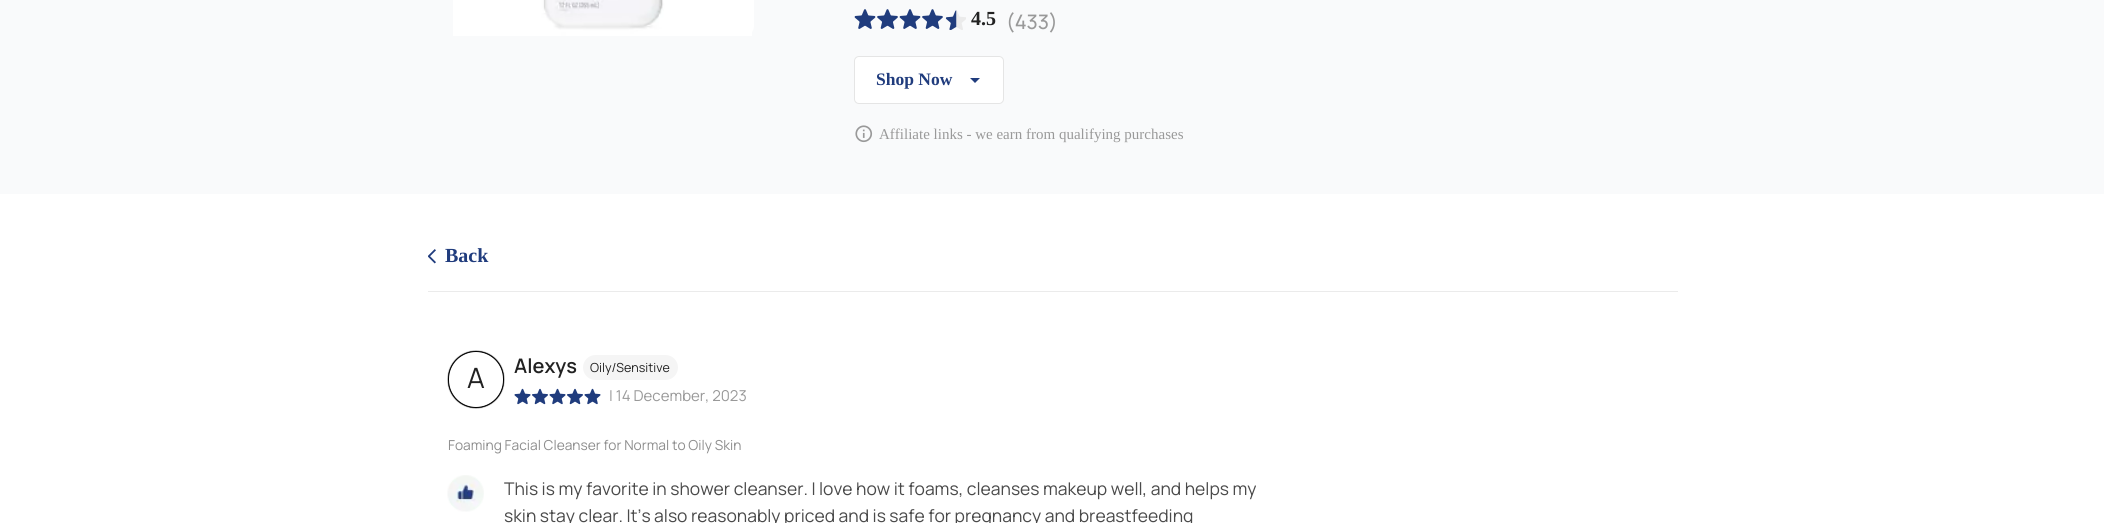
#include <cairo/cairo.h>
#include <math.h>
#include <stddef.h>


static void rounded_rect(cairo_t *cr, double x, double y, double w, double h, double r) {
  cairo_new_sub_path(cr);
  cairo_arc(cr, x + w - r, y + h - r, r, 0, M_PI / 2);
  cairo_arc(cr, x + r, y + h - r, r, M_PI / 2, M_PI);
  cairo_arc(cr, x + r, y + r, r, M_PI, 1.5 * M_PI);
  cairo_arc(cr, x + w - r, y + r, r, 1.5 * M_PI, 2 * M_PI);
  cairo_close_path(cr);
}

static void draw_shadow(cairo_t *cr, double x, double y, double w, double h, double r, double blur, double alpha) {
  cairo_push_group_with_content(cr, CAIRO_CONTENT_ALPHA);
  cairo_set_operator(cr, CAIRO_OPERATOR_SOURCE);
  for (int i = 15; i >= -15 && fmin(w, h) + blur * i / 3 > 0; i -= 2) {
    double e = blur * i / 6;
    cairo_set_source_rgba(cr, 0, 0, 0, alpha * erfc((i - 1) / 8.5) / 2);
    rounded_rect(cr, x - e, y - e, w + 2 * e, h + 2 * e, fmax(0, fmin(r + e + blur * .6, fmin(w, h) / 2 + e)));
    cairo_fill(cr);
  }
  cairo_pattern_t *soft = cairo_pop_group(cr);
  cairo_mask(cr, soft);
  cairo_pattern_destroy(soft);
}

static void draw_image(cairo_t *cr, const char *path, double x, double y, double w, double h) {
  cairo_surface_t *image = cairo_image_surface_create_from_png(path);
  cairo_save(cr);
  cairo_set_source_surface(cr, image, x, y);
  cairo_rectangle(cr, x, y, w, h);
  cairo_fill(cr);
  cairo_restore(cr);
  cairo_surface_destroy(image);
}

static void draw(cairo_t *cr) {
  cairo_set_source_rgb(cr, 1, 1, 1);
  cairo_paint(cr);
  cairo_set_source_rgb(cr, 249 / 255.0, 250 / 255.0, 251 / 255.0);
  cairo_rectangle(cr, 0, 0, 2104, 194);
  cairo_fill(cr);
  cairo_set_source_rgb(cr, 1, 1, 1);
  rounded_rect(cr, 453, -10, 301, 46, 10);
  cairo_fill(cr);
  draw_image(cr, "images/1.png", 453, 0, 299, 36);
  draw_image(cr, "images/2.png", 854, 9, 22, 20);
  draw_image(cr, "images/3.png", 877, 9, 21, 20);
  draw_image(cr, "images/2.png", 899, 9, 22, 20);
  draw_image(cr, "images/3.png", 922, 9, 21, 20);
  draw_image(cr, "images/4.png", 945, 10, 21, 20);
  rounded_rect(cr, 854.5, 56.5, 149, 47, 4.5);
  cairo_fill_preserve(cr);
  cairo_set_source_rgb(cr, 229 / 255.0, 229 / 255.0, 229 / 255.0);
  cairo_set_line_width(cr, 1);
  cairo_stroke(cr);
  cairo_set_source_rgb(cr, 32 / 255.0, 60 / 255.0, 125 / 255.0);
  cairo_new_path(cr);
  cairo_move_to(cr, 970, 78);
  cairo_line_to(cr, 975, 83);
  cairo_line_to(cr, 980, 78);
  cairo_close_path(cr);
  cairo_fill(cr);
  draw_image(cr, "images/5.png", 855, 125, 18, 18);
  draw_image(cr, "images/6.png", 428, 249, 8, 15);
  cairo_set_source_rgb(cr, 235 / 255.0, 235 / 255.0, 235 / 255.0);
  cairo_rectangle(cr, 428, 291, 1250, 1);
  cairo_fill(cr);
  cairo_set_source_rgb(cr, 0, 0, 0);
  draw_shadow(cr, 448, 351, 56, 57, 28, 0.5, 1);
  cairo_set_source_rgb(cr, 1, 1, 1);
  rounded_rect(cr, 448.5, 351.5, 55, 56, 27.5);
  cairo_fill_preserve(cr);
  cairo_set_source_rgb(cr, 0, 0, 0);
  cairo_stroke(cr);
  cairo_set_source_rgb(cr, 245 / 255.0, 245 / 255.0, 245 / 255.0);
  rounded_rect(cr, 583, 355, 95, 25, 12.5);
  cairo_fill(cr);
  draw_image(cr, "images/7.png", 514, 388, 17, 17);
  draw_image(cr, "images/8.png", 532, 388, 16, 17);
  draw_image(cr, "images/7.png", 549, 388, 17, 17);
  draw_image(cr, "images/8.png", 567, 388, 16, 17);
  draw_image(cr, "images/7.png", 584, 388, 17, 17);
  draw_image(cr, "images/9.png", 447, 475, 37, 37);
  cairo_select_font_face(cr, "Liberation Serif", CAIRO_FONT_SLANT_NORMAL, CAIRO_FONT_WEIGHT_BOLD);
  cairo_set_font_size(cr, 20);
  cairo_set_source_rgb(cr, 34 / 255.0, 34 / 255.0, 34 / 255.0);
  cairo_move_to(cr, 971, 25);
  cairo_show_text(cr, "4.5");
  cairo_select_font_face(cr, "Manrope Medium", CAIRO_FONT_SLANT_NORMAL, CAIRO_FONT_WEIGHT_NORMAL);
  cairo_set_source_rgb(cr, 153 / 255.0, 153 / 255.0, 153 / 255.0);
  cairo_move_to(cr, 1006, 29);
  cairo_show_text(cr, "(433)");
  cairo_select_font_face(cr, "Liberation Serif", CAIRO_FONT_SLANT_NORMAL, CAIRO_FONT_WEIGHT_BOLD);
  cairo_set_font_size(cr, 17.5);
  cairo_set_source_rgb(cr, 32 / 255.0, 60 / 255.0, 125 / 255.0);
  cairo_move_to(cr, 876, 85);
  cairo_show_text(cr, "Shop Now");
  cairo_select_font_face(cr, "Liberation Serif", CAIRO_FONT_SLANT_NORMAL, CAIRO_FONT_WEIGHT_NORMAL);
  cairo_set_font_size(cr, 15);
  cairo_set_source_rgb(cr, 153 / 255.0, 153 / 255.0, 153 / 255.0);
  cairo_move_to(cr, 879, 139);
  cairo_show_text(cr, "Affiliate links - we earn from qualifying purchases");
  cairo_select_font_face(cr, "Liberation Serif", CAIRO_FONT_SLANT_NORMAL, CAIRO_FONT_WEIGHT_BOLD);
  cairo_set_font_size(cr, 20);
  cairo_set_source_rgb(cr, 32 / 255.0, 60 / 255.0, 125 / 255.0);
  cairo_move_to(cr, 445, 262);
  cairo_show_text(cr, "Back");
  cairo_select_font_face(cr, "Manrope", CAIRO_FONT_SLANT_NORMAL, CAIRO_FONT_WEIGHT_NORMAL);
  cairo_set_font_size(cr, 28);
  cairo_set_source_rgb(cr, 34 / 255.0, 34 / 255.0, 34 / 255.0);
  cairo_move_to(cr, 467, 388);
  cairo_show_text(cr, "A");
  cairo_select_font_face(cr, "Manrope SemiBold", CAIRO_FONT_SLANT_NORMAL, CAIRO_FONT_WEIGHT_NORMAL);
  cairo_set_font_size(cr, 20);
  cairo_move_to(cr, 514, 373);
  cairo_show_text(cr, "Alexys");
  cairo_select_font_face(cr, "Manrope", CAIRO_FONT_SLANT_NORMAL, CAIRO_FONT_WEIGHT_NORMAL);
  cairo_set_font_size(cr, 12.5);
  cairo_move_to(cr, 590, 372);
  cairo_show_text(cr, "Oily/Sensitive");
  cairo_set_font_size(cr, 15);
  cairo_set_source_rgb(cr, 153 / 255.0, 153 / 255.0, 153 / 255.0);
  cairo_move_to(cr, 609, 401);
  cairo_show_text(cr, "| 14 December, 2023");
  cairo_set_font_size(cr, 13.75);
  cairo_set_source_rgb(cr, 142 / 255.0, 142 / 255.0, 142 / 255.0);
  cairo_move_to(cr, 448, 450);
  cairo_show_text(cr, "Foaming Facial Cleanser for Normal to Oily Skin");
  cairo_set_font_size(cr, 17.5);
  cairo_set_source_rgb(cr, 74 / 255.0, 74 / 255.0, 74 / 255.0);
  cairo_move_to(cr, 504, 495);
  cairo_show_text(cr, "This is my favorite in shower cleanser. I love how it foams, cleanses makeup well, and helps my");
  cairo_move_to(cr, 504, 522);
  cairo_show_text(cr, "skin stay clear. It’s also reasonably priced and is safe for pregnancy and breastfeeding");
}

int main(void) {
  cairo_surface_t *surface = cairo_image_surface_create(CAIRO_FORMAT_RGB24, 2104, 523);
  cairo_t *cr = cairo_create(surface);
  cairo_font_options_t *options = cairo_font_options_create();
  cairo_font_options_set_hint_metrics(options, CAIRO_HINT_METRICS_OFF);
  cairo_font_options_set_hint_style(options, CAIRO_HINT_STYLE_NONE);
  cairo_set_font_options(cr, options);
  cairo_set_miter_limit(cr, 4);
  draw(cr);
  cairo_surface_write_to_png(surface, "out.png");
  cairo_font_options_destroy(options);
  cairo_destroy(cr);
  cairo_surface_destroy(surface);
  return 0;
}
